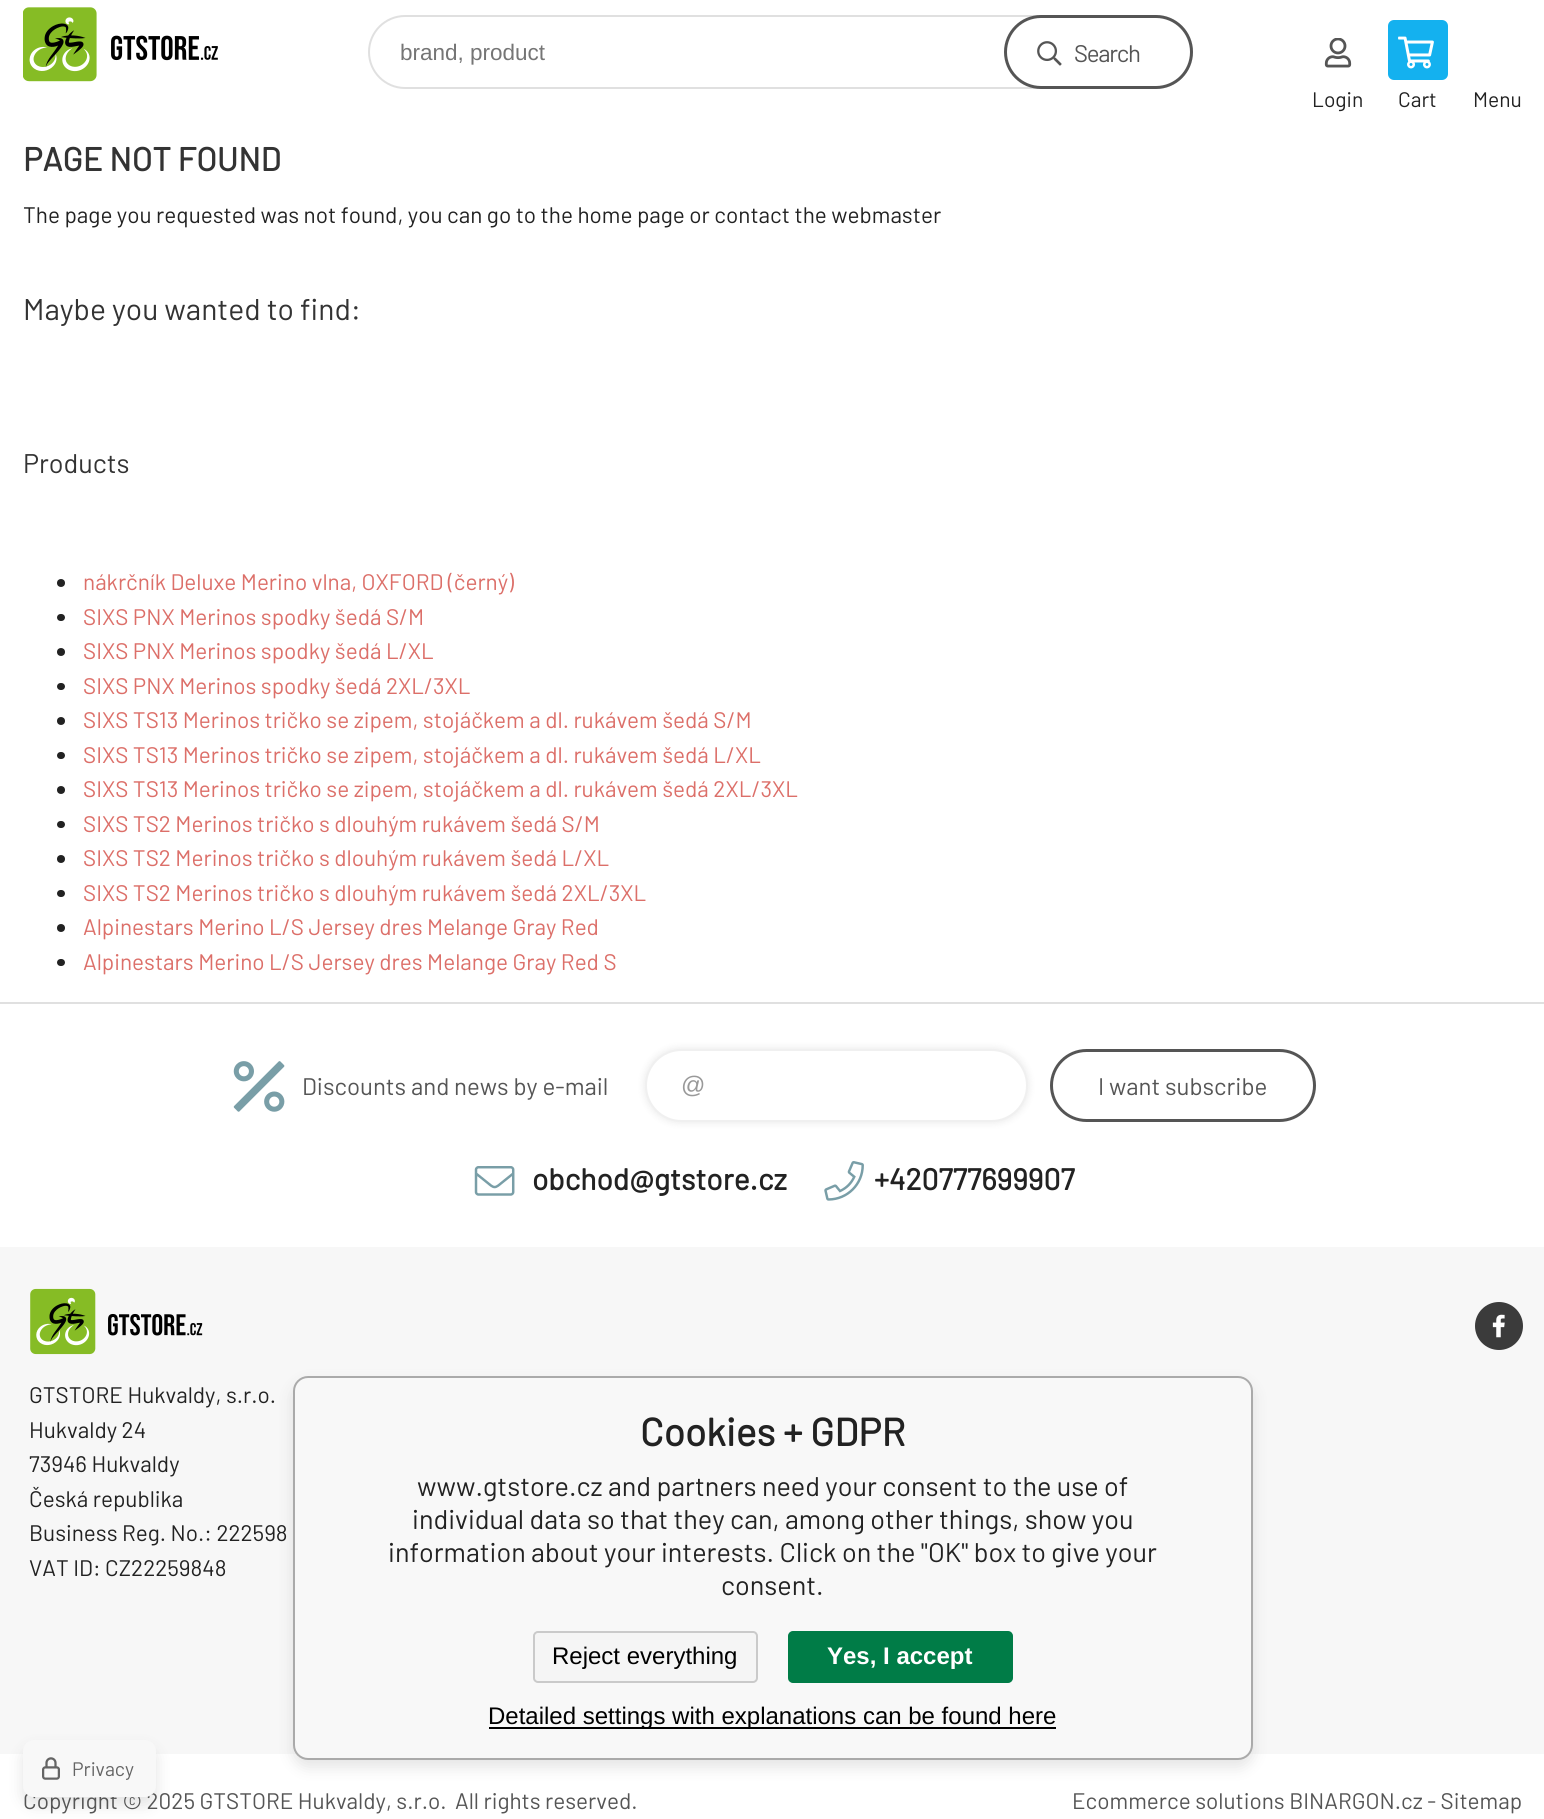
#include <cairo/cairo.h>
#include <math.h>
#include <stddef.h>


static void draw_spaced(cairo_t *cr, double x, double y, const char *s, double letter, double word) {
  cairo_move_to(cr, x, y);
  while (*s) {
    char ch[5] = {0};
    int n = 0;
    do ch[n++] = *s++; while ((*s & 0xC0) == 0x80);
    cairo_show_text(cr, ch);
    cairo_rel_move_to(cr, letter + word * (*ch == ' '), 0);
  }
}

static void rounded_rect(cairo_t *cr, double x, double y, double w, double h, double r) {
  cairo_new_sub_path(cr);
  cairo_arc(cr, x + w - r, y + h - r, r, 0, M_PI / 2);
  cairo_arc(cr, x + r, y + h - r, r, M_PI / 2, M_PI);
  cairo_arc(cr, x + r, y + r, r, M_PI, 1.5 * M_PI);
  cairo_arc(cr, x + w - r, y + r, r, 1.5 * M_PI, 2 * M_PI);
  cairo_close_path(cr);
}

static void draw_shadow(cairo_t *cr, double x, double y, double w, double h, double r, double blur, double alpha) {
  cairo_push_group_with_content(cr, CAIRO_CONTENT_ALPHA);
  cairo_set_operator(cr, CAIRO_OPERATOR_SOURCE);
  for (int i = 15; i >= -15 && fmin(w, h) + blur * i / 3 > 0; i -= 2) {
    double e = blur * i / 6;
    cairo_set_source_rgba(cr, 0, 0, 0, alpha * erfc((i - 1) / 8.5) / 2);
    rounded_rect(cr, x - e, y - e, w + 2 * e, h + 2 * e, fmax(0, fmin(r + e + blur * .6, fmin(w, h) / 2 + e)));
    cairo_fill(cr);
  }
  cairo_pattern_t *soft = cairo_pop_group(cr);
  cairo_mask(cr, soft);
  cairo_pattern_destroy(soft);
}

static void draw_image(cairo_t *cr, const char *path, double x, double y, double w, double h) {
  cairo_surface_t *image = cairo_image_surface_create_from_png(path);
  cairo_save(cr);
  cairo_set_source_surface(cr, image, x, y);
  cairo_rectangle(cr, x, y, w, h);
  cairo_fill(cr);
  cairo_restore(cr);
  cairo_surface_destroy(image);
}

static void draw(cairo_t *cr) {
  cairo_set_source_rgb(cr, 1, 1, 1);
  cairo_paint(cr);
  draw_image(cr, "images/1.png", 23, 7, 195, 75);
  rounded_rect(cr, 369, 16, 823, 72, 36);
  cairo_set_source_rgb(cr, 224 / 255.0, 224 / 255.0, 224 / 255.0);
  cairo_stroke(cr);
  draw_image(cr, "images/2.png", 1037, 41, 25, 25);
  rounded_rect(cr, 1005.5, 16.5, 186, 71, 35.5);
  cairo_set_source_rgb(cr, 85 / 255.0, 85 / 255.0, 85 / 255.0);
  cairo_set_line_width(cr, 3);
  cairo_stroke(cr);
  draw_image(cr, "images/3.png", 1324, 38, 28, 30);
  cairo_set_source_rgb(cr, 20 / 255.0, 177 / 255.0, 239 / 255.0);
  rounded_rect(cr, 1388, 20, 60, 60, 6);
  cairo_fill(cr);
  draw_image(cr, "images/4.png", 1398, 36, 36, 33);
  cairo_set_source_rgb(cr, 34 / 255.0, 34 / 255.0, 34 / 255.0);
  cairo_arc(cr, 61, 583, 4, 0, 2 * M_PI);
  cairo_fill(cr);
  rounded_rect(cr, 57, 614, 8, 7, 3.5);
  cairo_fill(cr);
  cairo_arc(cr, 61, 652, 4, 0, 2 * M_PI);
  cairo_fill(cr);
  rounded_rect(cr, 57, 683, 8, 7, 3.5);
  cairo_fill(cr);
  cairo_arc(cr, 61, 721, 4, 0, 2 * M_PI);
  cairo_fill(cr);
  rounded_rect(cr, 57, 752, 8, 7, 3.5);
  cairo_fill(cr);
  cairo_arc(cr, 61, 790, 4, 0, 2 * M_PI);
  cairo_fill(cr);
  rounded_rect(cr, 57, 821, 8, 7, 3.5);
  cairo_fill(cr);
  cairo_arc(cr, 61, 859, 4, 0, 2 * M_PI);
  cairo_fill(cr);
  rounded_rect(cr, 57, 890, 8, 7, 3.5);
  cairo_fill(cr);
  cairo_arc(cr, 61, 928, 4, 0, 2 * M_PI);
  cairo_fill(cr);
  rounded_rect(cr, 57, 959, 8, 7, 3.5);
  cairo_fill(cr);
  cairo_set_source_rgb(cr, 224 / 255.0, 224 / 255.0, 224 / 255.0);
  cairo_rectangle(cr, 0, 1002, 1544, 2);
  cairo_fill(cr);
  draw_image(cr, "images/5.png", 233, 1061, 52, 51);
  cairo_set_source_rgb(cr, 0, 0, 0);
  draw_shadow(cr, 645, 1049, 383, 73, 36.5, 4, 0.1);
  cairo_set_source_rgb(cr, 1, 1, 1);
  rounded_rect(cr, 646, 1050, 381, 71, 35.5);
  cairo_fill_preserve(cr);
  cairo_set_source_rgb(cr, 240 / 255.0, 240 / 255.0, 240 / 255.0);
  cairo_set_line_width(cr, 2);
  cairo_stroke(cr);
  rounded_rect(cr, 1051.5, 1050.5, 263, 70, 35);
  cairo_set_source_rgb(cr, 85 / 255.0, 85 / 255.0, 85 / 255.0);
  cairo_set_line_width(cr, 3);
  cairo_stroke(cr);
  draw_image(cr, "images/6.png", 474, 1166, 41, 30);
  draw_image(cr, "images/7.png", 824, 1161, 40, 40);
  cairo_set_source_rgb(cr, 247 / 255.0, 247 / 255.0, 247 / 255.0);
  cairo_rectangle(cr, 0, 1247, 1544, 507);
  cairo_fill(cr);
  draw_image(cr, "images/8.png", 30, 1288, 173, 67);
  cairo_set_source_rgb(cr, 59 / 255.0, 59 / 255.0, 59 / 255.0);
  cairo_arc(cr, 1499, 1326, 24, 0, 2 * M_PI);
  cairo_fill(cr);
  draw_image(cr, "images/9.png", 1492, 1314, 13, 24);
  cairo_set_source_rgb(cr, 200 / 255.0, 200 / 255.0, 200 / 255.0);
  draw_shadow(cr, 293, 1383, 960, 384, 15, 7.5, 0.5);
  cairo_set_source_rgb(cr, 248 / 255.0, 248 / 255.0, 248 / 255.0);
  rounded_rect(cr, 294, 1377, 958, 382, 14);
  cairo_fill_preserve(cr);
  cairo_set_source_rgb(cr, 170 / 255.0, 170 / 255.0, 170 / 255.0);
  cairo_set_line_width(cr, 2);
  cairo_stroke(cr);
  cairo_set_source_rgb(cr, 245 / 255.0, 245 / 255.0, 245 / 255.0);
  rounded_rect(cr, 534, 1632, 223, 50, 4);
  cairo_fill_preserve(cr);
  cairo_set_source_rgb(cr, 202 / 255.0, 202 / 255.0, 202 / 255.0);
  cairo_stroke(cr);
  cairo_set_source_rgb(cr, 0, 124 / 255.0, 71 / 255.0);
  rounded_rect(cr, 789, 1632, 223, 50, 4);
  cairo_fill_preserve(cr);
  cairo_stroke(cr);
  cairo_set_source_rgb(cr, 0, 0, 0);
  cairo_rectangle(cr, 489, 1727, 567, 2);
  cairo_fill(cr);
  cairo_set_source_rgb(cr, 200 / 255.0, 200 / 255.0, 200 / 255.0);
  draw_shadow(cr, 23, 1748, 133, 57, 11, 7.5, 0.5);
  cairo_select_font_face(cr, "Liberation Sans", CAIRO_FONT_SLANT_NORMAL, CAIRO_FONT_WEIGHT_NORMAL);
  cairo_set_font_size(cr, 22.5);
  cairo_set_source_rgb(cr, 117 / 255.0, 117 / 255.0, 117 / 255.0);
  cairo_move_to(cr, 400, 60);
  cairo_show_text(cr, "brand, product");
  cairo_select_font_face(cr, "Barlow", CAIRO_FONT_SLANT_NORMAL, CAIRO_FONT_WEIGHT_NORMAL);
  cairo_set_font_size(cr, 24);
  cairo_set_source_rgb(cr, 85 / 255.0, 85 / 255.0, 85 / 255.0);
  draw_spaced(cr, 1074, 62, "Search", -1.25, 0);
  cairo_set_font_size(cr, 21);
  cairo_set_source_rgb(cr, 34 / 255.0, 34 / 255.0, 34 / 255.0);
  cairo_move_to(cr, 1312, 107);
  cairo_show_text(cr, "Login");
  cairo_move_to(cr, 1398, 107);
  cairo_show_text(cr, "Cart");
  cairo_move_to(cr, 1473, 107);
  cairo_show_text(cr, "Menu");
  cairo_select_font_face(cr, "Barlow", CAIRO_FONT_SLANT_NORMAL, CAIRO_FONT_WEIGHT_BOLD);
  cairo_set_font_size(cr, 33);
  cairo_set_source_rgb(cr, 51 / 255.0, 51 / 255.0, 51 / 255.0);
  cairo_move_to(cr, 23, 171);
  cairo_show_text(cr, "PAGE NOT FOUND");
  cairo_select_font_face(cr, "Barlow", CAIRO_FONT_SLANT_NORMAL, CAIRO_FONT_WEIGHT_NORMAL);
  cairo_set_font_size(cr, 22.5);
  cairo_set_source_rgb(cr, 34 / 255.0, 34 / 255.0, 34 / 255.0);
  cairo_move_to(cr, 23, 223);
  cairo_show_text(cr, "The page you requested was not found, you can go to the home page or contact the webmaster");
  cairo_set_font_size(cr, 30);
  cairo_set_source_rgb(cr, 51 / 255.0, 51 / 255.0, 51 / 255.0);
  cairo_move_to(cr, 23, 320);
  cairo_show_text(cr, "Maybe you wanted to find:");
  cairo_set_font_size(cr, 27);
  cairo_move_to(cr, 23, 473);
  cairo_show_text(cr, "Products");
  cairo_set_font_size(cr, 22.5);
  cairo_set_source_rgb(cr, 220 / 255.0, 111 / 255.0, 105 / 255.0);
  cairo_move_to(cr, 83, 590);
  cairo_show_text(cr, "nákrčník Deluxe Merino vlna, OXFORD (černý)");
  cairo_move_to(cr, 83, 625);
  cairo_show_text(cr, "SIXS PNX Merinos spodky šedá S/M");
  cairo_move_to(cr, 83, 659);
  cairo_show_text(cr, "SIXS PNX Merinos spodky šedá L/XL");
  cairo_move_to(cr, 83, 694);
  cairo_show_text(cr, "SIXS PNX Merinos spodky šedá 2XL/3XL");
  cairo_move_to(cr, 83, 728);
  cairo_show_text(cr, "SIXS TS13 Merinos tričko se zipem, stojáčkem a dl. rukávem šedá S/M");
  cairo_move_to(cr, 83, 763);
  cairo_show_text(cr, "SIXS TS13 Merinos tričko se zipem, stojáčkem a dl. rukávem šedá L/XL");
  cairo_move_to(cr, 83, 797);
  cairo_show_text(cr, "SIXS TS13 Merinos tričko se zipem, stojáčkem a dl. rukávem šedá 2XL/3XL");
  cairo_move_to(cr, 83, 832);
  cairo_show_text(cr, "SIXS TS2 Merinos tričko s dlouhým rukávem šedá S/M");
  cairo_move_to(cr, 83, 866);
  cairo_show_text(cr, "SIXS TS2 Merinos tričko s dlouhým rukávem šedá L/XL");
  cairo_move_to(cr, 83, 901);
  cairo_show_text(cr, "SIXS TS2 Merinos tričko s dlouhým rukávem šedá 2XL/3XL");
  cairo_move_to(cr, 83, 935);
  cairo_show_text(cr, "Alpinestars Merino L/S Jersey dres Melange Gray Red");
  cairo_move_to(cr, 83, 970);
  cairo_show_text(cr, "Alpinestars Merino L/S Jersey dres Melange Gray Red S");
  cairo_set_font_size(cr, 24);
  cairo_set_source_rgb(cr, 85 / 255.0, 85 / 255.0, 85 / 255.0);
  cairo_move_to(cr, 302, 1095);
  cairo_show_text(cr, "Discounts and news by e-mail");
  cairo_select_font_face(cr, "Liberation Sans", CAIRO_FONT_SLANT_NORMAL, CAIRO_FONT_WEIGHT_NORMAL);
  cairo_set_source_rgb(cr, 153 / 255.0, 153 / 255.0, 153 / 255.0);
  cairo_move_to(cr, 681, 1093);
  cairo_show_text(cr, "@");
  cairo_select_font_face(cr, "Barlow", CAIRO_FONT_SLANT_NORMAL, CAIRO_FONT_WEIGHT_NORMAL);
  cairo_set_source_rgb(cr, 85 / 255.0, 85 / 255.0, 85 / 255.0);
  cairo_move_to(cr, 1098, 1095);
  cairo_show_text(cr, "I want subscribe");
  cairo_select_font_face(cr, "Barlow", CAIRO_FONT_SLANT_NORMAL, CAIRO_FONT_WEIGHT_BOLD);
  cairo_set_font_size(cr, 30);
  cairo_set_source_rgb(cr, 34 / 255.0, 34 / 255.0, 34 / 255.0);
  cairo_move_to(cr, 532, 1190);
  cairo_show_text(cr, "obchod@gtstore.cz");
  cairo_move_to(cr, 874, 1190);
  cairo_show_text(cr, "+420777699907");
  cairo_select_font_face(cr, "Barlow", CAIRO_FONT_SLANT_NORMAL, CAIRO_FONT_WEIGHT_NORMAL);
  cairo_set_font_size(cr, 22.5);
  cairo_move_to(cr, 29, 1403);
  cairo_show_text(cr, "GTSTORE Hukvaldy, s.r.o.");
  cairo_move_to(cr, 29, 1438);
  cairo_show_text(cr, "Hukvaldy 24");
  cairo_move_to(cr, 29, 1472);
  cairo_show_text(cr, "73946 Hukvaldy");
  cairo_move_to(cr, 29, 1507);
  cairo_show_text(cr, "Česká republika");
  cairo_move_to(cr, 29, 1541);
  cairo_show_text(cr, "Business Reg. No.: 222598");
  cairo_move_to(cr, 29, 1576);
  cairo_show_text(cr, "VAT ID: CZ22259848");
  cairo_set_source_rgb(cr, 85 / 255.0, 85 / 255.0, 85 / 255.0);
  cairo_move_to(cr, 23, 1809);
  cairo_show_text(cr, "Copyright © 2025 GTSTORE Hukvaldy, s.r.o.");
  cairo_move_to(cr, 455, 1809);
  cairo_show_text(cr, "All rights reserved.");
  cairo_move_to(cr, 1072, 1809);
  cairo_show_text(cr, "Ecommerce solutions BINARGON.cz - Sitemap");
  cairo_select_font_face(cr, "Barlow", CAIRO_FONT_SLANT_NORMAL, CAIRO_FONT_WEIGHT_BOLD);
  cairo_set_font_size(cr, 39);
  cairo_set_source_rgb(cr, 34 / 255.0, 34 / 255.0, 34 / 255.0);
  cairo_move_to(cr, 640, 1446);
  cairo_show_text(cr, "Cookies + GDPR");
  cairo_select_font_face(cr, "Barlow", CAIRO_FONT_SLANT_NORMAL, CAIRO_FONT_WEIGHT_NORMAL);
  cairo_set_font_size(cr, 27);
  cairo_move_to(cr, 417, 1496);
  cairo_show_text(cr, "www.gtstore.cz and partners need your consent to the use of");
  cairo_move_to(cr, 412, 1529);
  cairo_show_text(cr, "individual data so that they can, among other things, show you");
  cairo_move_to(cr, 388, 1562);
  cairo_show_text(cr, "information about your interests. Click on the \"OK\" box to give your");
  cairo_move_to(cr, 721, 1595);
  cairo_show_text(cr, "consent.");
  cairo_select_font_face(cr, "Liberation Sans", CAIRO_FONT_SLANT_NORMAL, CAIRO_FONT_WEIGHT_NORMAL);
  cairo_set_font_size(cr, 24);
  cairo_set_source_rgb(cr, 0, 0, 0);
  cairo_move_to(cr, 552, 1664);
  cairo_show_text(cr, "Reject everything");
  cairo_select_font_face(cr, "Liberation Sans", CAIRO_FONT_SLANT_NORMAL, CAIRO_FONT_WEIGHT_BOLD);
  cairo_set_source_rgb(cr, 1, 1, 1);
  cairo_move_to(cr, 827, 1664);
  cairo_show_text(cr, "Yes, I accept");
  cairo_select_font_face(cr, "Liberation Sans", CAIRO_FONT_SLANT_NORMAL, CAIRO_FONT_WEIGHT_NORMAL);
  cairo_set_source_rgb(cr, 0, 0, 0);
  cairo_move_to(cr, 488, 1724);
  cairo_show_text(cr, "Detailed settings with explanations can be found here");
  cairo_set_source_rgb(cr, 248 / 255.0, 248 / 255.0, 248 / 255.0);
  rounded_rect(cr, 23, 1740, 133, 57, 11);
  cairo_fill(cr);
  draw_image(cr, "images/10.png", 42, 1757, 18, 23);
  cairo_select_font_face(cr, "Barlow", CAIRO_FONT_SLANT_NORMAL, CAIRO_FONT_WEIGHT_NORMAL);
  cairo_set_font_size(cr, 19.5);
  cairo_set_source_rgb(cr, 100 / 255.0, 100 / 255.0, 100 / 255.0);
  cairo_move_to(cr, 72, 1776);
  cairo_show_text(cr, "Privacy");
}

int main(void) {
  cairo_surface_t *surface = cairo_image_surface_create(CAIRO_FORMAT_RGB24, 1544, 1819);
  cairo_t *cr = cairo_create(surface);
  cairo_font_options_t *options = cairo_font_options_create();
  cairo_font_options_set_hint_metrics(options, CAIRO_HINT_METRICS_OFF);
  cairo_font_options_set_hint_style(options, CAIRO_HINT_STYLE_NONE);
  cairo_set_font_options(cr, options);
  cairo_set_miter_limit(cr, 4);
  draw(cr);
  cairo_surface_write_to_png(surface, "out.png");
  cairo_font_options_destroy(options);
  cairo_destroy(cr);
  cairo_surface_destroy(surface);
  return 0;
}
